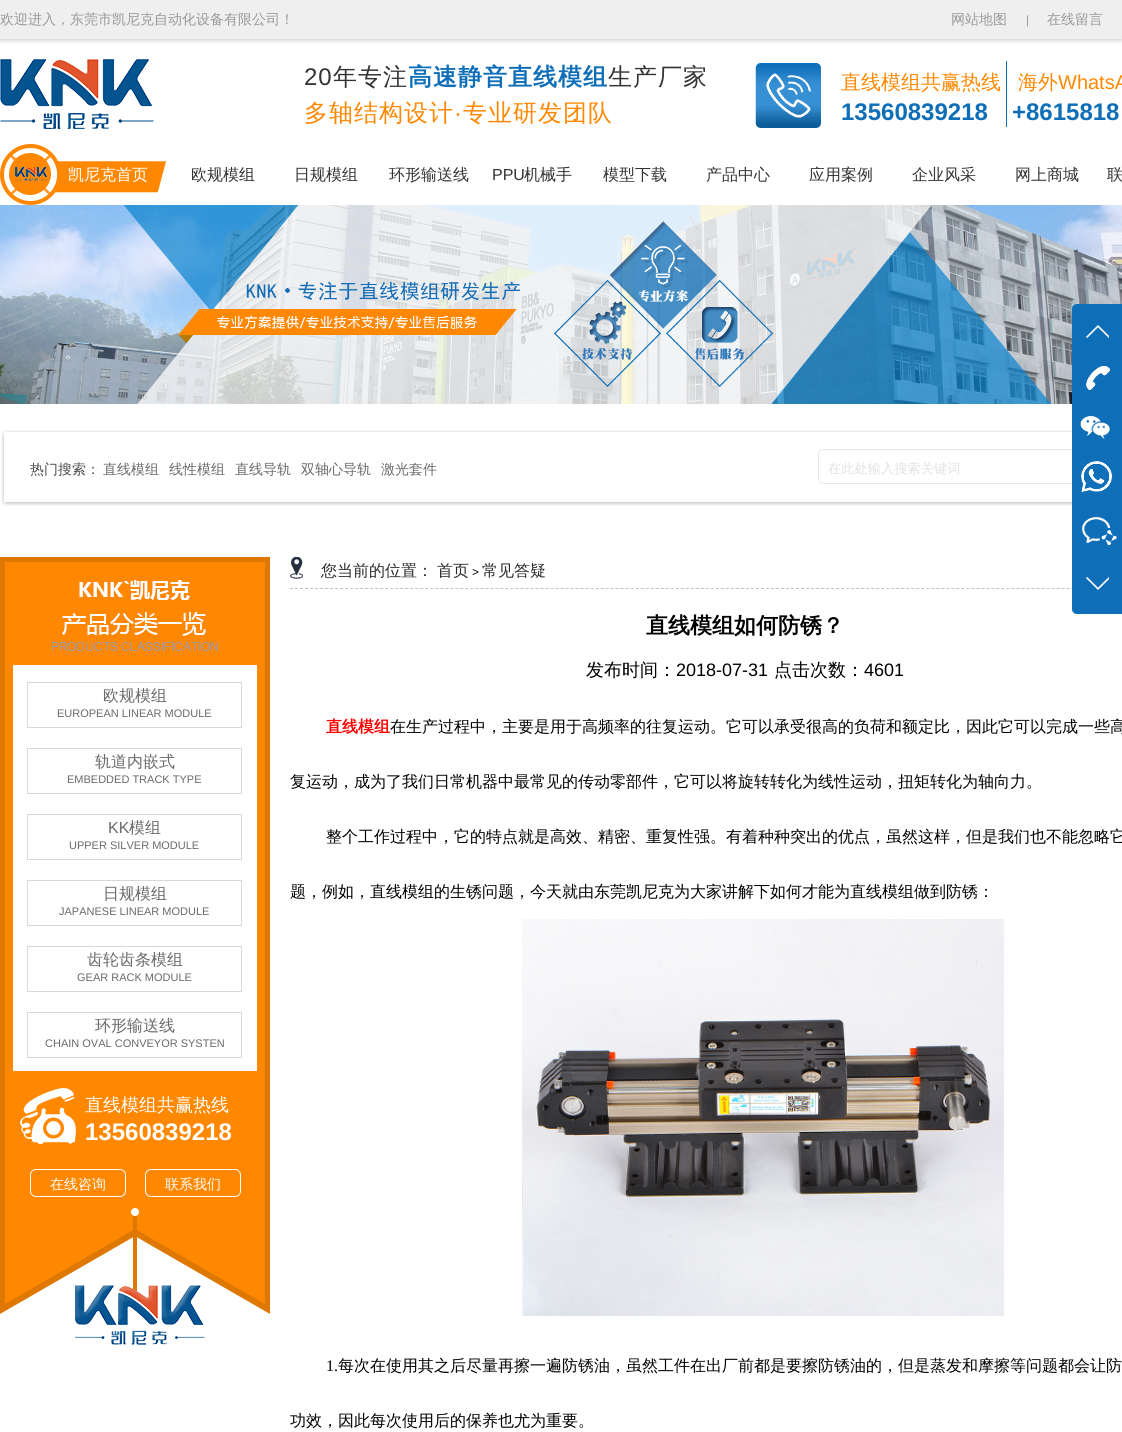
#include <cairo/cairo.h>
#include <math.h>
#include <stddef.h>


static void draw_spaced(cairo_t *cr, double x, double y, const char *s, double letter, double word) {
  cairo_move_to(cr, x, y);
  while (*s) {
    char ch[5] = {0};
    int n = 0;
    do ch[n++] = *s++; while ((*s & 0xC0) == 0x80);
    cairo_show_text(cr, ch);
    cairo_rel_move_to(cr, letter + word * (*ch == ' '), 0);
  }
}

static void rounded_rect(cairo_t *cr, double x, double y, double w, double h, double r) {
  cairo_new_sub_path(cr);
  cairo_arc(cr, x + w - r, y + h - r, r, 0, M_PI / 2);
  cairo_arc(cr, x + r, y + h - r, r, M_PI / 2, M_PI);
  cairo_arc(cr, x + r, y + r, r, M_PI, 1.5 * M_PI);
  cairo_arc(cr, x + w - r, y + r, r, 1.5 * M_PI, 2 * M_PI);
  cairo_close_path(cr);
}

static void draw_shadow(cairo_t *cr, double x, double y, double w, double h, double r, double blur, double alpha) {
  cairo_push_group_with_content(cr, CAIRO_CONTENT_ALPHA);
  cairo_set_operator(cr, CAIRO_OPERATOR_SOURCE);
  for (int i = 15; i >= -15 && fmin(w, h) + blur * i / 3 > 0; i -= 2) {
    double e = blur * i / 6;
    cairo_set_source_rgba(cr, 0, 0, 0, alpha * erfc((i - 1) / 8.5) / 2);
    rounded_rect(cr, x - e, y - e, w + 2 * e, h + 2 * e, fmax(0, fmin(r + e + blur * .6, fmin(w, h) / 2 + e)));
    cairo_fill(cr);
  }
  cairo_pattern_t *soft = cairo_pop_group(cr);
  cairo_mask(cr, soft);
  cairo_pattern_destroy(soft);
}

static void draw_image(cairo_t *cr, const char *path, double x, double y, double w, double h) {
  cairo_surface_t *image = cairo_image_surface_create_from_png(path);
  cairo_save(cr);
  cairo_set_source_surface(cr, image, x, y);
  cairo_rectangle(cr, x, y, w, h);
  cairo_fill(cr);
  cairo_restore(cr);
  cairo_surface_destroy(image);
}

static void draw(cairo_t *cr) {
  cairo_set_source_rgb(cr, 1, 1, 1);
  cairo_paint(cr);
  cairo_set_source_rgb(cr, 7 / 255.0, 0, 2 / 255.0);
  draw_shadow(cr, 0, 0, 1122, 39, 0, 3, 0.3);
  cairo_set_source_rgb(cr, 239 / 255.0, 239 / 255.0, 239 / 255.0);
  cairo_rectangle(cr, 0, 0, 1122, 39);
  cairo_fill(cr);
  draw_image(cr, "images/1.png", 0, 59, 154, 70);
  draw_image(cr, "images/2.png", 755, 63, 66, 65);
  cairo_set_source_rgb(cr, 14 / 255.0, 110 / 255.0, 184 / 255.0);
  cairo_rectangle(cr, 1006, 61, 1, 66);
  cairo_fill(cr);
  draw_image(cr, "images/3.png", 0, 144, 166, 61);
  draw_image(cr, "images/4.png", 0, 205, 1122, 199);
  draw_image(cr, "images/5.png", 1, 430, 1071, 76);
  draw_image(cr, "images/6.png", 818, 449, 254, 35);
  draw_image(cr, "images/7.png", 0, 557, 270, 788);
  cairo_rectangle(cr, 27.5, 682.5, 214, 45);
  cairo_set_source_rgb(cr, 216 / 255.0, 216 / 255.0, 216 / 255.0);
  cairo_set_line_width(cr, 1);
  cairo_stroke(cr);
  cairo_rectangle(cr, 27.5, 748.5, 214, 45);
  cairo_stroke(cr);
  cairo_rectangle(cr, 27.5, 814.5, 214, 45);
  cairo_stroke(cr);
  cairo_rectangle(cr, 27.5, 880.5, 214, 45);
  cairo_stroke(cr);
  cairo_rectangle(cr, 27.5, 946.5, 214, 45);
  cairo_stroke(cr);
  cairo_rectangle(cr, 27.5, 1012.5, 214, 45);
  cairo_stroke(cr);
  draw_image(cr, "images/8.png", 20, 1088, 56, 56);
  rounded_rect(cr, 30.5, 1169.5, 95, 27, 5.5);
  cairo_set_source_rgb(cr, 1, 1, 1);
  cairo_stroke(cr);
  rounded_rect(cr, 145.5, 1169.5, 95, 27, 5.5);
  cairo_stroke(cr);
  cairo_new_path(cr);
  cairo_move_to(cr, 290, 588.5);
  cairo_line_to(cr, 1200, 588.5);
  cairo_set_source_rgb(cr, 194 / 255.0, 194 / 255.0, 194 / 255.0);
  cairo_set_dash(cr, (double[]){3, 2.01}, 2, 0);
  cairo_stroke(cr);
  draw_image(cr, "images/9.png", 290, 557, 13, 22);
  draw_image(cr, "images/10.png", 522, 919, 482, 397);
  cairo_set_source_rgb(cr, 14 / 255.0, 110 / 255.0, 184 / 255.0);
  cairo_new_path(cr);
  cairo_move_to(cr, 1077, 304);
  cairo_line_to(cr, 1122, 304);
  cairo_line_to(cr, 1122, 614);
  cairo_line_to(cr, 1077, 614);
  cairo_curve_to(cr, 1074, 614, 1072, 612, 1072, 609);
  cairo_line_to(cr, 1072, 309);
  cairo_curve_to(cr, 1072, 306, 1074, 304, 1077, 304);
  cairo_close_path(cr);
  cairo_fill(cr);
  draw_image(cr, "images/11.png", 1086, 325, 23, 13);
  draw_image(cr, "images/12.png", 1086, 366, 24, 24);
  draw_image(cr, "images/13.png", 1080, 415, 30, 24);
  draw_image(cr, "images/14.png", 1079, 459, 34, 35);
  draw_image(cr, "images/15.png", 1082, 517, 35, 29);
  draw_image(cr, "images/16.png", 1086, 577, 23, 13);
  cairo_select_font_face(cr, "WenQuanYi Zen Hei Medium", CAIRO_FONT_SLANT_NORMAL, CAIRO_FONT_WEIGHT_NORMAL);
  cairo_set_font_size(cr, 14);
  cairo_set_source_rgb(cr, 153 / 255.0, 153 / 255.0, 153 / 255.0);
  cairo_move_to(cr, 0, 24);
  cairo_show_text(cr, "欢迎进入，东莞市凯尼克自动化设备有限公司！");
  cairo_move_to(cr, 951, 24);
  cairo_show_text(cr, "网站地图");
  cairo_select_font_face(cr, "Liberation Sans", CAIRO_FONT_SLANT_NORMAL, CAIRO_FONT_WEIGHT_NORMAL);
  cairo_set_font_size(cr, 12);
  cairo_move_to(cr, 1026, 24);
  cairo_show_text(cr, "|");
  cairo_select_font_face(cr, "WenQuanYi Zen Hei Medium", CAIRO_FONT_SLANT_NORMAL, CAIRO_FONT_WEIGHT_NORMAL);
  cairo_set_font_size(cr, 14);
  cairo_move_to(cr, 1047, 24);
  cairo_show_text(cr, "在线留言");
  cairo_select_font_face(cr, "Liberation Sans", CAIRO_FONT_SLANT_NORMAL, CAIRO_FONT_WEIGHT_NORMAL);
  cairo_set_font_size(cr, 24);
  cairo_set_source_rgb(cr, 51 / 255.0, 51 / 255.0, 51 / 255.0);
  draw_spaced(cr, 304, 85, "20", 1, 0);
  cairo_select_font_face(cr, "WenQuanYi Zen Hei Medium", CAIRO_FONT_SLANT_NORMAL, CAIRO_FONT_WEIGHT_NORMAL);
  draw_spaced(cr, 333, 85, "年专注", 1, 0);
  cairo_select_font_face(cr, "WenQuanYi Zen Hei", CAIRO_FONT_SLANT_NORMAL, CAIRO_FONT_WEIGHT_BOLD);
  cairo_set_source_rgb(cr, 14 / 255.0, 110 / 255.0, 184 / 255.0);
  draw_spaced(cr, 408, 85, "高速静音直线模组", 1, 0);
  cairo_select_font_face(cr, "WenQuanYi Zen Hei Medium", CAIRO_FONT_SLANT_NORMAL, CAIRO_FONT_WEIGHT_NORMAL);
  cairo_set_source_rgb(cr, 51 / 255.0, 51 / 255.0, 51 / 255.0);
  draw_spaced(cr, 608, 85, "生产厂家", 1, 0);
  cairo_set_source_rgb(cr, 1, 136 / 255.0, 0);
  draw_spaced(cr, 304, 121, "多轴结构设计", 1, 0);
  cairo_select_font_face(cr, "Liberation Sans", CAIRO_FONT_SLANT_NORMAL, CAIRO_FONT_WEIGHT_NORMAL);
  draw_spaced(cr, 454, 121, "·", 1, 0);
  cairo_select_font_face(cr, "WenQuanYi Zen Hei Medium", CAIRO_FONT_SLANT_NORMAL, CAIRO_FONT_WEIGHT_NORMAL);
  draw_spaced(cr, 463, 121, "专业研发团队", 1, 0);
  cairo_set_font_size(cr, 20);
  cairo_move_to(cr, 841, 89);
  cairo_show_text(cr, "直线模组共赢热线");
  cairo_select_font_face(cr, "Liberation Sans", CAIRO_FONT_SLANT_NORMAL, CAIRO_FONT_WEIGHT_BOLD);
  cairo_set_font_size(cr, 24);
  cairo_set_source_rgb(cr, 14 / 255.0, 110 / 255.0, 184 / 255.0);
  cairo_move_to(cr, 841, 120);
  cairo_show_text(cr, "13560839218");
  cairo_select_font_face(cr, "WenQuanYi Zen Hei Medium", CAIRO_FONT_SLANT_NORMAL, CAIRO_FONT_WEIGHT_NORMAL);
  cairo_set_font_size(cr, 20);
  cairo_set_source_rgb(cr, 1, 136 / 255.0, 0);
  cairo_move_to(cr, 1018, 89);
  cairo_show_text(cr, "海外");
  cairo_select_font_face(cr, "Liberation Sans", CAIRO_FONT_SLANT_NORMAL, CAIRO_FONT_WEIGHT_NORMAL);
  cairo_move_to(cr, 1058, 89);
  cairo_show_text(cr, "WhatsA");
  cairo_select_font_face(cr, "Liberation Sans", CAIRO_FONT_SLANT_NORMAL, CAIRO_FONT_WEIGHT_BOLD);
  cairo_set_font_size(cr, 24);
  cairo_set_source_rgb(cr, 14 / 255.0, 110 / 255.0, 184 / 255.0);
  cairo_move_to(cr, 1012, 120);
  cairo_show_text(cr, "+8615818");
  cairo_select_font_face(cr, "WenQuanYi Zen Hei Medium", CAIRO_FONT_SLANT_NORMAL, CAIRO_FONT_WEIGHT_NORMAL);
  cairo_set_font_size(cr, 16);
  cairo_set_source_rgb(cr, 1, 1, 1);
  cairo_move_to(cr, 68, 180);
  cairo_show_text(cr, "凯尼克首页");
  cairo_set_source_rgb(cr, 51 / 255.0, 51 / 255.0, 51 / 255.0);
  cairo_move_to(cr, 191, 180);
  cairo_show_text(cr, "欧规模组");
  cairo_move_to(cr, 294, 180);
  cairo_show_text(cr, "日规模组");
  cairo_move_to(cr, 389, 180);
  cairo_show_text(cr, "环形输送线");
  cairo_select_font_face(cr, "Liberation Sans", CAIRO_FONT_SLANT_NORMAL, CAIRO_FONT_WEIGHT_NORMAL);
  cairo_move_to(cr, 492, 180);
  cairo_show_text(cr, "PPU");
  cairo_select_font_face(cr, "WenQuanYi Zen Hei Medium", CAIRO_FONT_SLANT_NORMAL, CAIRO_FONT_WEIGHT_NORMAL);
  cairo_move_to(cr, 524, 180);
  cairo_show_text(cr, "机械手");
  cairo_move_to(cr, 603, 180);
  cairo_show_text(cr, "模型下载");
  cairo_move_to(cr, 706, 180);
  cairo_show_text(cr, "产品中心");
  cairo_move_to(cr, 809, 180);
  cairo_show_text(cr, "应用案例");
  cairo_move_to(cr, 912, 180);
  cairo_show_text(cr, "企业风采");
  cairo_move_to(cr, 1015, 180);
  cairo_show_text(cr, "网上商城");
  cairo_move_to(cr, 1107, 180);
  cairo_show_text(cr, "联");
  cairo_set_font_size(cr, 14);
  cairo_set_source_rgb(cr, 73 / 255.0, 73 / 255.0, 73 / 255.0);
  cairo_move_to(cr, 30, 474);
  cairo_show_text(cr, "热门搜索：");
  cairo_set_source_rgb(cr, 105 / 255.0, 105 / 255.0, 105 / 255.0);
  cairo_move_to(cr, 103, 474);
  cairo_show_text(cr, "直线模组");
  cairo_move_to(cr, 169, 474);
  cairo_show_text(cr, "线性模组");
  cairo_move_to(cr, 235, 474);
  cairo_show_text(cr, "直线导轨");
  cairo_move_to(cr, 301, 474);
  cairo_show_text(cr, "双轴心导轨");
  cairo_move_to(cr, 381, 474);
  cairo_show_text(cr, "激光套件");
  cairo_set_font_size(cr, 13.25);
  cairo_set_source_rgb(cr, 226 / 255.0, 226 / 255.0, 226 / 255.0);
  cairo_move_to(cr, 828, 473);
  cairo_show_text(cr, "在此处输入搜索关键词");
  cairo_set_font_size(cr, 16);
  cairo_set_source_rgb(cr, 105 / 255.0, 105 / 255.0, 105 / 255.0);
  cairo_move_to(cr, 103, 701);
  cairo_show_text(cr, "欧规模组");
  cairo_select_font_face(cr, "Liberation Sans", CAIRO_FONT_SLANT_NORMAL, CAIRO_FONT_WEIGHT_NORMAL);
  cairo_set_font_size(cr, 11);
  cairo_move_to(cr, 57, 717);
  cairo_show_text(cr, "EUROPEAN LINEAR MODULE");
  cairo_select_font_face(cr, "WenQuanYi Zen Hei Medium", CAIRO_FONT_SLANT_NORMAL, CAIRO_FONT_WEIGHT_NORMAL);
  cairo_set_font_size(cr, 16);
  cairo_move_to(cr, 95, 767);
  cairo_show_text(cr, "轨道内嵌式");
  cairo_select_font_face(cr, "Liberation Sans", CAIRO_FONT_SLANT_NORMAL, CAIRO_FONT_WEIGHT_NORMAL);
  cairo_set_font_size(cr, 11);
  cairo_move_to(cr, 67, 783);
  cairo_show_text(cr, "EMBEDDED TRACK TYPE");
  cairo_set_font_size(cr, 16);
  cairo_move_to(cr, 108, 833);
  cairo_show_text(cr, "KK");
  cairo_select_font_face(cr, "WenQuanYi Zen Hei Medium", CAIRO_FONT_SLANT_NORMAL, CAIRO_FONT_WEIGHT_NORMAL);
  cairo_move_to(cr, 129, 833);
  cairo_show_text(cr, "模组");
  cairo_select_font_face(cr, "Liberation Sans", CAIRO_FONT_SLANT_NORMAL, CAIRO_FONT_WEIGHT_NORMAL);
  cairo_set_font_size(cr, 11);
  cairo_move_to(cr, 69, 849);
  cairo_show_text(cr, "UPPER SILVER MODULE");
  cairo_select_font_face(cr, "WenQuanYi Zen Hei Medium", CAIRO_FONT_SLANT_NORMAL, CAIRO_FONT_WEIGHT_NORMAL);
  cairo_set_font_size(cr, 16);
  cairo_move_to(cr, 103, 899);
  cairo_show_text(cr, "日规模组");
  cairo_select_font_face(cr, "Liberation Sans", CAIRO_FONT_SLANT_NORMAL, CAIRO_FONT_WEIGHT_NORMAL);
  cairo_set_font_size(cr, 11);
  cairo_move_to(cr, 59, 915);
  cairo_show_text(cr, "JAPANESE LINEAR MODULE");
  cairo_select_font_face(cr, "WenQuanYi Zen Hei Medium", CAIRO_FONT_SLANT_NORMAL, CAIRO_FONT_WEIGHT_NORMAL);
  cairo_set_font_size(cr, 16);
  cairo_move_to(cr, 87, 965);
  cairo_show_text(cr, "齿轮齿条模组");
  cairo_select_font_face(cr, "Liberation Sans", CAIRO_FONT_SLANT_NORMAL, CAIRO_FONT_WEIGHT_NORMAL);
  cairo_set_font_size(cr, 11);
  cairo_move_to(cr, 77, 981);
  cairo_show_text(cr, "GEAR RACK MODULE");
  cairo_select_font_face(cr, "WenQuanYi Zen Hei Medium", CAIRO_FONT_SLANT_NORMAL, CAIRO_FONT_WEIGHT_NORMAL);
  cairo_set_font_size(cr, 16);
  cairo_move_to(cr, 95, 1031);
  cairo_show_text(cr, "环形输送线");
  cairo_select_font_face(cr, "Liberation Sans", CAIRO_FONT_SLANT_NORMAL, CAIRO_FONT_WEIGHT_NORMAL);
  cairo_set_font_size(cr, 11);
  cairo_move_to(cr, 45, 1047);
  cairo_show_text(cr, "CHAIN OVAL CONVEYOR SYSTEN");
  cairo_select_font_face(cr, "WenQuanYi Zen Hei Medium", CAIRO_FONT_SLANT_NORMAL, CAIRO_FONT_WEIGHT_NORMAL);
  cairo_set_font_size(cr, 18);
  cairo_set_source_rgb(cr, 1, 1, 1);
  cairo_move_to(cr, 85, 1111);
  cairo_show_text(cr, "直线模组共赢热线");
  cairo_select_font_face(cr, "Liberation Sans", CAIRO_FONT_SLANT_NORMAL, CAIRO_FONT_WEIGHT_BOLD);
  cairo_set_font_size(cr, 24);
  cairo_move_to(cr, 85, 1140);
  cairo_show_text(cr, "13560839218");
  cairo_select_font_face(cr, "WenQuanYi Zen Hei Medium", CAIRO_FONT_SLANT_NORMAL, CAIRO_FONT_WEIGHT_NORMAL);
  cairo_set_font_size(cr, 14);
  cairo_move_to(cr, 50, 1189);
  cairo_show_text(cr, "在线咨询");
  cairo_move_to(cr, 165, 1189);
  cairo_show_text(cr, "联系我们");
  cairo_set_font_size(cr, 16);
  cairo_set_source_rgb(cr, 41 / 255.0, 41 / 255.0, 41 / 255.0);
  cairo_move_to(cr, 321, 576);
  cairo_show_text(cr, "您当前的位置：");
  cairo_move_to(cr, 437, 576);
  cairo_show_text(cr, "首页");
  cairo_select_font_face(cr, "Liberation Sans", CAIRO_FONT_SLANT_NORMAL, CAIRO_FONT_WEIGHT_NORMAL);
  cairo_set_font_size(cr, 12);
  cairo_set_source_rgb(cr, 0, 0, 0);
  cairo_move_to(cr, 472, 576);
  cairo_show_text(cr, ">");
  cairo_select_font_face(cr, "WenQuanYi Zen Hei Medium", CAIRO_FONT_SLANT_NORMAL, CAIRO_FONT_WEIGHT_NORMAL);
  cairo_set_font_size(cr, 16);
  cairo_set_source_rgb(cr, 41 / 255.0, 41 / 255.0, 41 / 255.0);
  cairo_move_to(cr, 482, 576);
  cairo_show_text(cr, "常见答疑");
  cairo_select_font_face(cr, "WenQuanYi Zen Hei", CAIRO_FONT_SLANT_NORMAL, CAIRO_FONT_WEIGHT_BOLD);
  cairo_set_font_size(cr, 22);
  cairo_set_source_rgb(cr, 0, 0, 0);
  cairo_move_to(cr, 646, 633);
  cairo_show_text(cr, "直线模组如何防锈？");
  cairo_select_font_face(cr, "WenQuanYi Zen Hei Medium", CAIRO_FONT_SLANT_NORMAL, CAIRO_FONT_WEIGHT_NORMAL);
  cairo_set_font_size(cr, 18);
  cairo_move_to(cr, 586, 676);
  cairo_show_text(cr, "发布时间：");
  cairo_select_font_face(cr, "Liberation Sans", CAIRO_FONT_SLANT_NORMAL, CAIRO_FONT_WEIGHT_NORMAL);
  cairo_move_to(cr, 676, 676);
  cairo_show_text(cr, "2018-07-31");
  cairo_select_font_face(cr, "WenQuanYi Zen Hei Medium", CAIRO_FONT_SLANT_NORMAL, CAIRO_FONT_WEIGHT_NORMAL);
  cairo_move_to(cr, 774, 676);
  cairo_show_text(cr, "点击次数：");
  cairo_select_font_face(cr, "Liberation Sans", CAIRO_FONT_SLANT_NORMAL, CAIRO_FONT_WEIGHT_NORMAL);
  cairo_move_to(cr, 864, 676);
  cairo_show_text(cr, "4601");
  cairo_select_font_face(cr, "WenQuanYi Zen Hei", CAIRO_FONT_SLANT_NORMAL, CAIRO_FONT_WEIGHT_BOLD);
  cairo_set_font_size(cr, 16);
  cairo_set_source_rgb(cr, 1, 0, 0);
  cairo_move_to(cr, 326, 732);
  cairo_show_text(cr, "直线模组");
  cairo_select_font_face(cr, "WenQuanYi Zen Hei Medium", CAIRO_FONT_SLANT_NORMAL, CAIRO_FONT_WEIGHT_NORMAL);
  cairo_set_source_rgb(cr, 0, 0, 0);
  cairo_move_to(cr, 390, 732);
  cairo_show_text(cr, "在生产过程中，主要是用于高频率的往复运动。它可以承受很高的负荷和额定比，因此它可以完成一些高");
  cairo_move_to(cr, 290, 787);
  cairo_show_text(cr, "复运动，成为了我们日常机器中最常见的传动零部件，它可以将旋转转化为线性运动，扭矩转化为轴向力。");
  cairo_move_to(cr, 326, 842);
  cairo_show_text(cr, "整个工作过程中，它的特点就是高效、精密、重复性强。有着种种突出的优点，虽然这样，但是我们也不能忽略它");
  cairo_move_to(cr, 290, 897);
  cairo_show_text(cr, "题，例如，直线模组的生锈问题，今天就由东莞凯尼克为大家讲解下如何才能为直线模组做到防锈：");
  cairo_select_font_face(cr, "Liberation Serif", CAIRO_FONT_SLANT_NORMAL, CAIRO_FONT_WEIGHT_NORMAL);
  cairo_move_to(cr, 326, 1371);
  cairo_show_text(cr, "1.");
  cairo_select_font_face(cr, "WenQuanYi Zen Hei Medium", CAIRO_FONT_SLANT_NORMAL, CAIRO_FONT_WEIGHT_NORMAL);
  cairo_move_to(cr, 338, 1371);
  cairo_show_text(cr, "每次在使用其之后尽量再擦一遍防锈油，虽然工件在出厂前都是要擦防锈油的，但是蒸发和摩擦等问题都会让防");
  cairo_move_to(cr, 290, 1426);
  cairo_show_text(cr, "功效，因此每次使用后的保养也尤为重要。");
}

int main(void) {
  cairo_surface_t *surface = cairo_image_surface_create(CAIRO_FORMAT_RGB24, 1122, 1432);
  cairo_t *cr = cairo_create(surface);
  cairo_font_options_t *options = cairo_font_options_create();
  cairo_font_options_set_hint_metrics(options, CAIRO_HINT_METRICS_OFF);
  cairo_font_options_set_hint_style(options, CAIRO_HINT_STYLE_NONE);
  cairo_set_font_options(cr, options);
  cairo_set_miter_limit(cr, 4);
  draw(cr);
  cairo_surface_write_to_png(surface, "out.png");
  cairo_font_options_destroy(options);
  cairo_destroy(cr);
  cairo_surface_destroy(surface);
  return 0;
}
